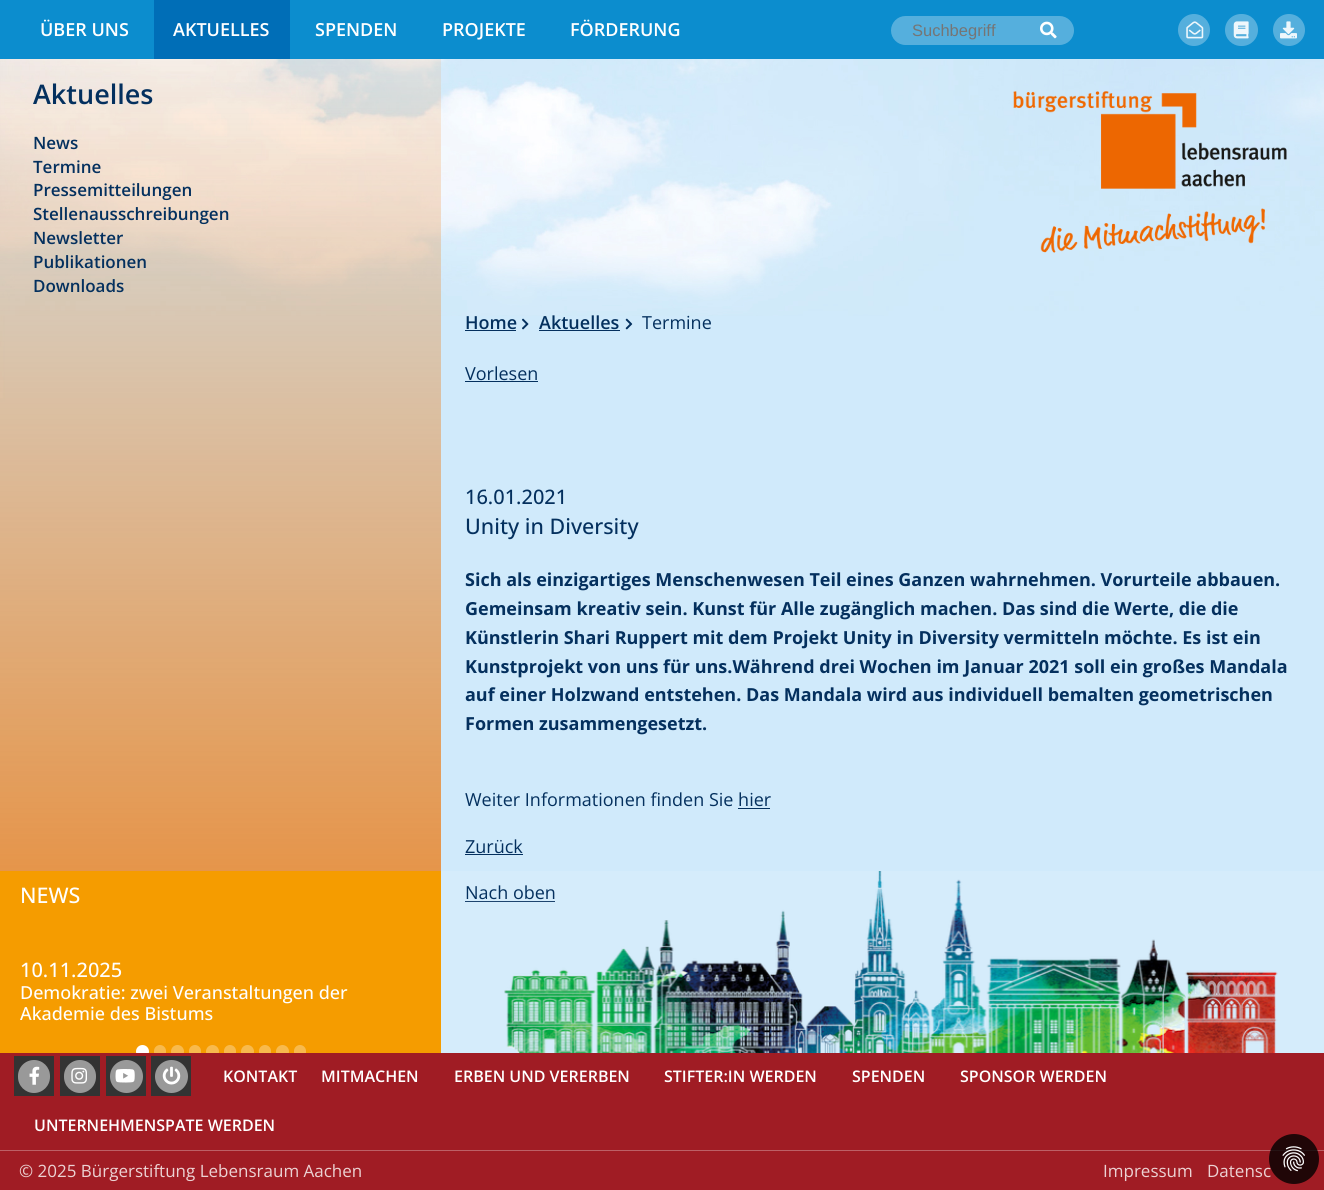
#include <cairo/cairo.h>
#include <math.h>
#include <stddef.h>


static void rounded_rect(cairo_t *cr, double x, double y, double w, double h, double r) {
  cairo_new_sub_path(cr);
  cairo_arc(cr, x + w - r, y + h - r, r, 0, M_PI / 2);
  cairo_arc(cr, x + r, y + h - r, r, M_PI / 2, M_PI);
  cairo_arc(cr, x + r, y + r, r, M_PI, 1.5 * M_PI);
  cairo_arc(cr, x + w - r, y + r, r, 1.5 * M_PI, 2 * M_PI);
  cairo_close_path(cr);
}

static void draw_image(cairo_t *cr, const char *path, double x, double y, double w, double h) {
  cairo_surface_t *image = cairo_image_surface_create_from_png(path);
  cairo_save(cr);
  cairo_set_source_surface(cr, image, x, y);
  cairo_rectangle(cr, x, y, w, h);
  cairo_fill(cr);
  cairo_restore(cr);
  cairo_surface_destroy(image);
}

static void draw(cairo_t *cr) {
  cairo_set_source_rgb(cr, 1, 1, 1);
  cairo_paint(cr);
  draw_image(cr, "images/1.png", 0, 59, 1324, 994);
  cairo_set_source_rgb(cr, 12 / 255.0, 141 / 255.0, 206 / 255.0);
  cairo_rectangle(cr, 0, 0, 1324, 59);
  cairo_fill(cr);
  cairo_set_source_rgb(cr, 0, 110 / 255.0, 183 / 255.0);
  cairo_rectangle(cr, 154, 0, 136, 59);
  cairo_fill(cr);
  cairo_set_source_rgb(cr, 85 / 255.0, 175 / 255.0, 221 / 255.0);
  rounded_rect(cr, 891, 16, 183, 29, 14.5);
  cairo_fill(cr);
  draw_image(cr, "images/2.png", 1040, 21, 17, 18);
  cairo_arc(cr, 1194, 30, 16, 0, 2 * M_PI);
  cairo_fill(cr);
  draw_image(cr, "images/3.png", 1186, 21, 18, 18);
  rounded_rect(cr, 1225, 14, 33, 32, 16);
  cairo_fill(cr);
  draw_image(cr, "images/4.png", 1233, 21, 16, 18);
  cairo_arc(cr, 1289, 30, 16, 0, 2 * M_PI);
  cairo_fill(cr);
  draw_image(cr, "images/5.png", 1280, 21, 17, 18);
  draw_image(cr, "images/6.png", 1013, 91, 274, 162);
  cairo_set_source_rgb(cr, 4 / 255.0, 48 / 255.0, 94 / 255.0);
  cairo_rectangle(cr, 465, 330, 51, 1);
  cairo_fill(cr);
  draw_image(cr, "images/7.png", 522, 318, 7, 12);
  cairo_rectangle(cr, 539, 330, 81, 1);
  cairo_fill(cr);
  draw_image(cr, "images/8.png", 625, 318, 8, 12);
  cairo_rectangle(cr, 465, 381, 73, 1);
  cairo_fill(cr);
  cairo_rectangle(cr, 738, 808, 32, 1);
  cairo_fill(cr);
  cairo_rectangle(cr, 465, 854, 58, 1);
  cairo_fill(cr);
  cairo_rectangle(cr, 465, 901, 90, 1);
  cairo_fill(cr);
  cairo_set_source_rgb(cr, 245 / 255.0, 156 / 255.0, 0);
  cairo_rectangle(cr, 0, 871, 441, 182);
  cairo_fill(cr);
  cairo_set_source_rgb(cr, 1, 1, 1);
  cairo_arc(cr, 142.5, 1051.5, 6.5, 0, 2 * M_PI);
  cairo_fill(cr);
  cairo_set_source_rgb(cr, 248 / 255.0, 186 / 255.0, 77 / 255.0);
  rounded_rect(cr, 154, 1045, 12, 13, 6);
  cairo_fill(cr);
  cairo_arc(cr, 177.5, 1051.5, 6.5, 0, 2 * M_PI);
  cairo_fill(cr);
  rounded_rect(cr, 189, 1045, 12, 13, 6);
  cairo_fill(cr);
  cairo_arc(cr, 212.5, 1051.5, 6.5, 0, 2 * M_PI);
  cairo_fill(cr);
  rounded_rect(cr, 224, 1045, 12, 13, 6);
  cairo_fill(cr);
  cairo_arc(cr, 247.5, 1051.5, 6.5, 0, 2 * M_PI);
  cairo_fill(cr);
  rounded_rect(cr, 259, 1045, 12, 13, 6);
  cairo_fill(cr);
  cairo_arc(cr, 282.5, 1051.5, 6.5, 0, 2 * M_PI);
  cairo_fill(cr);
  rounded_rect(cr, 294, 1045, 12, 13, 6);
  cairo_fill(cr);
  cairo_set_source_rgba(cr, 1, 1, 1, 0.1);
  cairo_rectangle(cr, 441, 871, 883, 182);
  cairo_fill(cr);
  cairo_set_source_rgb(cr, 160 / 255.0, 28 / 255.0, 36 / 255.0);
  cairo_rectangle(cr, 0, 1053, 1324, 137);
  cairo_fill(cr);
  cairo_set_source_rgb(cr, 51 / 255.0, 51 / 255.0, 51 / 255.0);
  cairo_rectangle(cr, 14, 1056, 40, 40);
  cairo_fill(cr);
  cairo_set_source_rgb(cr, 153 / 255.0, 153 / 255.0, 153 / 255.0);
  rounded_rect(cr, 18, 1060, 32, 33, 16);
  cairo_fill(cr);
  draw_image(cr, "images/10.png", 29, 1066, 11, 19);
  cairo_set_source_rgb(cr, 51 / 255.0, 51 / 255.0, 51 / 255.0);
  cairo_rectangle(cr, 60, 1056, 40, 40);
  cairo_fill(cr);
  cairo_set_source_rgb(cr, 153 / 255.0, 153 / 255.0, 153 / 255.0);
  rounded_rect(cr, 64, 1060, 32, 33, 16);
  cairo_fill(cr);
  draw_image(cr, "images/11.png", 71, 1067, 16, 17);
  cairo_set_source_rgb(cr, 51 / 255.0, 51 / 255.0, 51 / 255.0);
  cairo_rectangle(cr, 106, 1056, 40, 40);
  cairo_fill(cr);
  cairo_set_source_rgb(cr, 153 / 255.0, 153 / 255.0, 153 / 255.0);
  cairo_arc(cr, 126.5, 1076.5, 16.5, 0, 2 * M_PI);
  cairo_fill(cr);
  draw_image(cr, "images/12.png", 115, 1069, 20, 14);
  cairo_set_source_rgb(cr, 51 / 255.0, 51 / 255.0, 51 / 255.0);
  cairo_rectangle(cr, 151, 1056, 40, 40);
  cairo_fill(cr);
  cairo_set_source_rgb(cr, 153 / 255.0, 153 / 255.0, 153 / 255.0);
  cairo_arc(cr, 171.5, 1076.5, 16.5, 0, 2 * M_PI);
  cairo_fill(cr);
  draw_image(cr, "images/13.png", 162, 1066, 19, 19);
  cairo_set_source_rgb(cr, 189 / 255.0, 96 / 255.0, 102 / 255.0);
  cairo_rectangle(cr, 0, 1150, 1324, 1);
  cairo_fill(cr);
  cairo_select_font_face(cr, "Open Sans SemiBold", CAIRO_FONT_SLANT_NORMAL, CAIRO_FONT_WEIGHT_NORMAL);
  cairo_set_font_size(cr, 18);
  cairo_set_source_rgb(cr, 1, 1, 1);
  cairo_move_to(cr, 40, 36);
  cairo_show_text(cr, "ÜBER UNS");
  cairo_move_to(cr, 173, 36);
  cairo_show_text(cr, "AKTUELLES");
  cairo_move_to(cr, 315, 36);
  cairo_show_text(cr, "SPENDEN");
  cairo_move_to(cr, 442, 36);
  cairo_show_text(cr, "PROJEKTE");
  cairo_move_to(cr, 570, 36);
  cairo_show_text(cr, "FÖRDERUNG");
  cairo_select_font_face(cr, "Liberation Sans", CAIRO_FONT_SLANT_NORMAL, CAIRO_FONT_WEIGHT_NORMAL);
  cairo_set_font_size(cr, 16.5);
  cairo_set_source_rgb(cr, 117 / 255.0, 117 / 255.0, 117 / 255.0);
  cairo_move_to(cr, 912, 36);
  cairo_show_text(cr, "Suchbegriff");
  cairo_select_font_face(cr, "Open Sans SemiBold", CAIRO_FONT_SLANT_NORMAL, CAIRO_FONT_WEIGHT_NORMAL);
  cairo_set_font_size(cr, 27);
  cairo_set_source_rgb(cr, 4 / 255.0, 48 / 255.0, 94 / 255.0);
  cairo_move_to(cr, 33, 104);
  cairo_show_text(cr, "Aktuelles");
  cairo_set_font_size(cr, 17);
  cairo_move_to(cr, 33, 149);
  cairo_show_text(cr, "News");
  cairo_move_to(cr, 33, 173);
  cairo_show_text(cr, "Termine");
  cairo_move_to(cr, 33, 196);
  cairo_show_text(cr, "Pressemitteilungen");
  cairo_move_to(cr, 33, 220);
  cairo_show_text(cr, "Stellenausschreibungen");
  cairo_move_to(cr, 33, 244);
  cairo_show_text(cr, "Newsletter");
  cairo_move_to(cr, 33, 268);
  cairo_show_text(cr, "Publikationen");
  cairo_move_to(cr, 33, 292);
  cairo_show_text(cr, "Downloads");
  cairo_set_font_size(cr, 18);
  cairo_move_to(cr, 465, 329);
  cairo_show_text(cr, "Home");
  cairo_move_to(cr, 539, 329);
  cairo_show_text(cr, "Aktuelles");
  cairo_select_font_face(cr, "Open Sans", CAIRO_FONT_SLANT_NORMAL, CAIRO_FONT_WEIGHT_NORMAL);
  cairo_move_to(cr, 642, 329);
  cairo_show_text(cr, "Termine");
  cairo_move_to(cr, 465, 380);
  cairo_show_text(cr, "Vorlesen");
  cairo_select_font_face(cr, "Open Sans Medium", CAIRO_FONT_SLANT_NORMAL, CAIRO_FONT_WEIGHT_NORMAL);
  cairo_set_font_size(cr, 20);
  cairo_move_to(cr, 465, 504);
  cairo_show_text(cr, "16.01.2021");
  cairo_set_font_size(cr, 21.5);
  cairo_move_to(cr, 465, 534);
  cairo_show_text(cr, "Unity in Diversity");
  cairo_select_font_face(cr, "Open Sans", CAIRO_FONT_SLANT_NORMAL, CAIRO_FONT_WEIGHT_BOLD);
  cairo_set_font_size(cr, 18);
  cairo_move_to(cr, 465, 586);
  cairo_show_text(cr, "Sich als einzigartiges Menschenwesen Teil eines Ganzen wahrnehmen. Vorurteile abbauen.");
  cairo_move_to(cr, 465, 615);
  cairo_show_text(cr, "Gemeinsam kreativ sein. Kunst für Alle zugänglich machen. Das sind die Werte, die die");
  cairo_move_to(cr, 465, 644);
  cairo_show_text(cr, "Künstlerin Shari Ruppert mit dem Projekt Unity in Diversity vermitteln möchte. Es ist ein");
  cairo_move_to(cr, 465, 673);
  cairo_show_text(cr, "Kunstprojekt von uns für uns.Während drei Wochen im Januar 2021 soll ein großes Mandala");
  cairo_move_to(cr, 465, 701);
  cairo_show_text(cr, "auf einer Holzwand entstehen. Das Mandala wird aus individuell bemalten geometrischen");
  cairo_move_to(cr, 465, 730);
  cairo_show_text(cr, "Formen zusammengesetzt.");
  cairo_select_font_face(cr, "Open Sans", CAIRO_FONT_SLANT_NORMAL, CAIRO_FONT_WEIGHT_NORMAL);
  cairo_move_to(cr, 465, 806);
  cairo_show_text(cr, "Weiter Informationen finden Sie hier");
  cairo_move_to(cr, 465, 853);
  cairo_show_text(cr, "Zurück");
  cairo_move_to(cr, 465, 899);
  cairo_show_text(cr, "Nach oben");
  cairo_select_font_face(cr, "Open Sans Medium", CAIRO_FONT_SLANT_NORMAL, CAIRO_FONT_WEIGHT_NORMAL);
  cairo_set_font_size(cr, 21.5);
  cairo_set_source_rgb(cr, 1, 1, 1);
  cairo_move_to(cr, 20, 903);
  cairo_show_text(cr, "NEWS");
  cairo_set_font_size(cr, 20);
  cairo_move_to(cr, 20, 977);
  cairo_show_text(cr, "10.11.2025");
  cairo_set_font_size(cr, 18);
  cairo_move_to(cr, 20, 999);
  cairo_show_text(cr, "Demokratie: zwei Veranstaltungen der");
  cairo_move_to(cr, 20, 1020);
  cairo_show_text(cr, "Akademie des Bistums");
  draw_image(cr, "images/9.png", 504, 871, 774, 182);
  cairo_select_font_face(cr, "Open Sans SemiBold", CAIRO_FONT_SLANT_NORMAL, CAIRO_FONT_WEIGHT_NORMAL);
  cairo_set_font_size(cr, 16);
  cairo_move_to(cr, 321, 1082);
  cairo_show_text(cr, "MITMACHEN");
  cairo_move_to(cr, 454, 1082);
  cairo_show_text(cr, "ERBEN UND VERERBEN");
  cairo_move_to(cr, 664, 1082);
  cairo_show_text(cr, "STIFTER:IN WERDEN");
  cairo_move_to(cr, 852, 1082);
  cairo_show_text(cr, "SPENDEN");
  cairo_move_to(cr, 960, 1082);
  cairo_show_text(cr, "SPONSOR WERDEN");
  cairo_move_to(cr, 34, 1131);
  cairo_show_text(cr, "UNTERNEHMENSPATE WERDEN");
  cairo_move_to(cr, 223, 1082);
  cairo_show_text(cr, "KONTAKT");
  cairo_select_font_face(cr, "Open Sans", CAIRO_FONT_SLANT_NORMAL, CAIRO_FONT_WEIGHT_NORMAL);
  cairo_set_font_size(cr, 17);
  cairo_set_source_rgb(cr, 236 / 255.0, 210 / 255.0, 211 / 255.0);
  cairo_move_to(cr, 19, 1177);
  cairo_show_text(cr, "© 2025 Bürgerstiftung Lebensraum Aachen");
  cairo_move_to(cr, 1103, 1177);
  cairo_show_text(cr, "Impressum");
  cairo_move_to(cr, 1207, 1177);
  cairo_show_text(cr, "Datensc");
  cairo_set_source_rgba(cr, 0, 0, 0, 0.8);
  cairo_new_path(cr);
  cairo_arc(cr, 1294, 1159, 25, 0, 2 * M_PI);
  cairo_fill(cr);
  draw_image(cr, "images/14.png", 1282, 1146, 23, 26);
}

int main(void) {
  cairo_surface_t *surface = cairo_image_surface_create(CAIRO_FORMAT_RGB24, 1324, 1190);
  cairo_t *cr = cairo_create(surface);
  cairo_font_options_t *options = cairo_font_options_create();
  cairo_font_options_set_hint_metrics(options, CAIRO_HINT_METRICS_OFF);
  cairo_font_options_set_hint_style(options, CAIRO_HINT_STYLE_NONE);
  cairo_set_font_options(cr, options);
  cairo_set_miter_limit(cr, 4);
  draw(cr);
  cairo_surface_write_to_png(surface, "out.png");
  cairo_font_options_destroy(options);
  cairo_destroy(cr);
  cairo_surface_destroy(surface);
  return 0;
}
